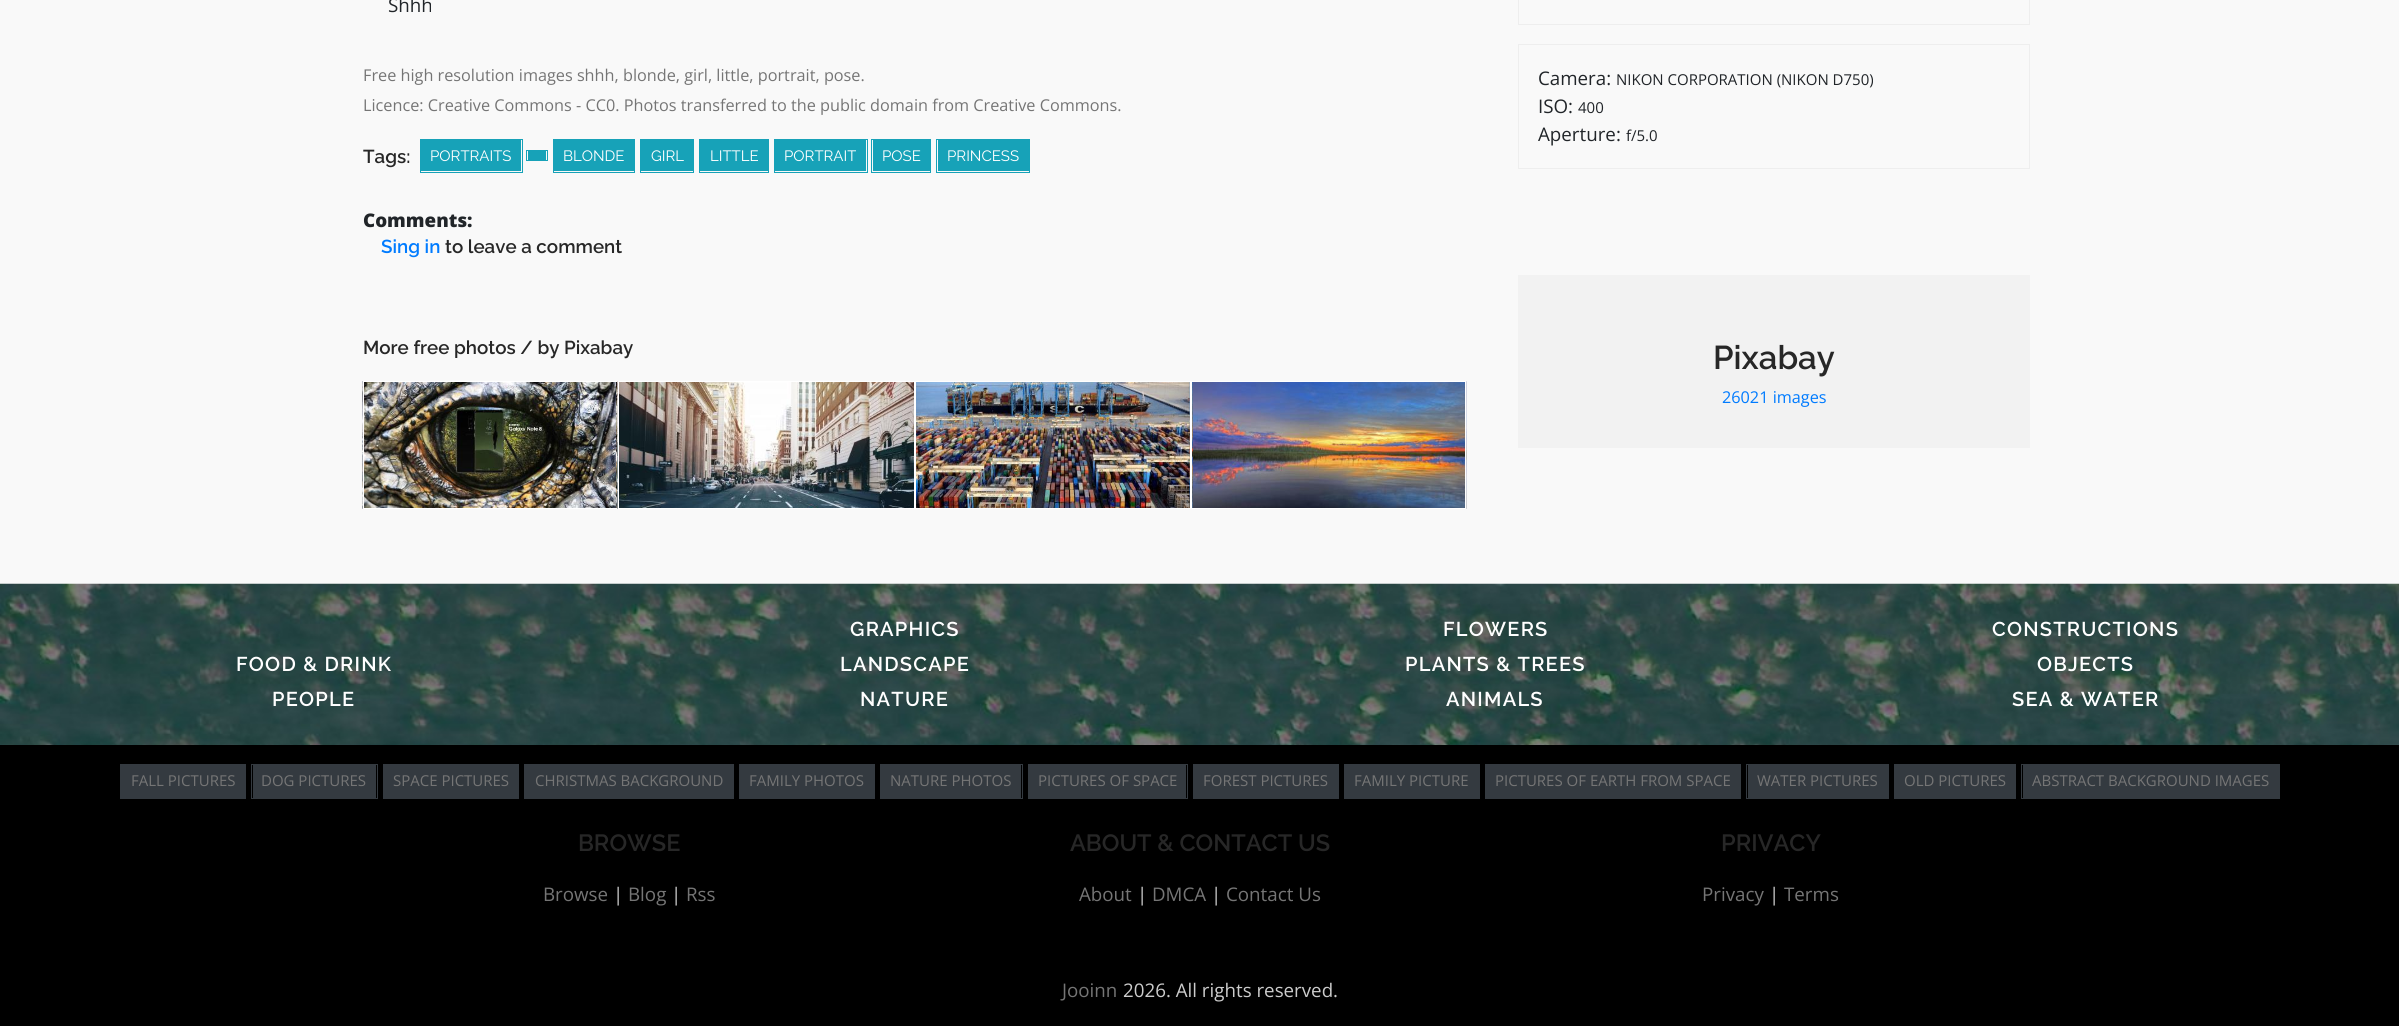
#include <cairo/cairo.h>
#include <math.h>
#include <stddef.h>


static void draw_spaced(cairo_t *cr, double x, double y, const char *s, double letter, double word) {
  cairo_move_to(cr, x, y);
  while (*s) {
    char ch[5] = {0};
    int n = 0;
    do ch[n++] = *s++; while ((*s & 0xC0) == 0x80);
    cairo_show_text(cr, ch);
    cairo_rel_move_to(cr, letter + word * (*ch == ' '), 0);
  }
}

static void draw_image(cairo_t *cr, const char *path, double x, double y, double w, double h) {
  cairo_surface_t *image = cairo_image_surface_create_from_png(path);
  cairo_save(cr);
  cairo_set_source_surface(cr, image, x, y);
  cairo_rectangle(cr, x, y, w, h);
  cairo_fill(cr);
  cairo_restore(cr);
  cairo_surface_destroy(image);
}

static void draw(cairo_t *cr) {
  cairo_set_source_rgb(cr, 249 / 255.0, 249 / 255.0, 249 / 255.0);
  cairo_paint(cr);
  cairo_set_source_rgb(cr, 23 / 255.0, 162 / 255.0, 184 / 255.0);
  cairo_rectangle(cr, 421, 140, 100, 31);
  cairo_fill(cr);
  cairo_rectangle(cr, 420.5, 139.5, 102, 33);
  cairo_set_line_width(cr, 1);
  cairo_stroke(cr);
  cairo_rectangle(cr, 528, 151, 18, 9);
  cairo_fill(cr);
  cairo_rectangle(cr, 526.5, 150.5, 21, 10);
  cairo_stroke(cr);
  cairo_rectangle(cr, 554, 140, 80, 31);
  cairo_fill(cr);
  cairo_rectangle(cr, 553.5, 139.5, 81, 33);
  cairo_stroke(cr);
  cairo_rectangle(cr, 641, 140, 52, 31);
  cairo_fill(cr);
  cairo_rectangle(cr, 640.5, 139.5, 53, 33);
  cairo_stroke(cr);
  cairo_rectangle(cr, 700, 140, 68, 31);
  cairo_fill(cr);
  cairo_rectangle(cr, 699.5, 139.5, 69, 33);
  cairo_stroke(cr);
  cairo_rectangle(cr, 775, 140, 91, 31);
  cairo_fill(cr);
  cairo_rectangle(cr, 774.5, 139.5, 93, 33);
  cairo_stroke(cr);
  cairo_rectangle(cr, 873, 140, 57, 31);
  cairo_fill(cr);
  cairo_rectangle(cr, 871.5, 139.5, 59, 33);
  cairo_stroke(cr);
  cairo_rectangle(cr, 938, 140, 91, 31);
  cairo_fill(cr);
  cairo_rectangle(cr, 936.5, 139.5, 93, 33);
  cairo_stroke(cr);
  draw_image(cr, "images/1.png", 362, 381, 255, 128);
  cairo_rectangle(cr, 363.5, 381.5, 254, 127);
  cairo_set_source_rgb(cr, 1, 1, 1);
  cairo_stroke(cr);
  draw_image(cr, "images/2.png", 617, 381, 297, 128);
  cairo_rectangle(cr, 618.5, 381.5, 296, 127);
  cairo_stroke(cr);
  draw_image(cr, "images/3.png", 916, 382, 274, 126);
  cairo_rectangle(cr, 915.5, 381.5, 275, 127);
  cairo_stroke(cr);
  draw_image(cr, "images/4.png", 1192, 381, 275, 128);
  cairo_rectangle(cr, 1191.5, 381.5, 274, 127);
  cairo_stroke(cr);
  cairo_rectangle(cr, 1518.5, -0.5, 511, 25);
  cairo_set_source_rgb(cr, 238 / 255.0, 238 / 255.0, 238 / 255.0);
  cairo_stroke(cr);
  cairo_rectangle(cr, 1518.5, 44.5, 511, 124);
  cairo_stroke(cr);
  cairo_set_source_rgb(cr, 242 / 255.0, 242 / 255.0, 242 / 255.0);
  cairo_rectangle(cr, 1518, 275, 512, 173);
  cairo_fill(cr);
  draw_image(cr, "images/5.png", 0, 583, 2399, 162);
  cairo_set_source_rgb(cr, 0, 0, 0);
  cairo_rectangle(cr, 0, 745, 2399, 281);
  cairo_fill(cr);
  cairo_set_source_rgb(cr, 52 / 255.0, 58 / 255.0, 64 / 255.0);
  cairo_rectangle(cr, 120.5, 764.5, 125, 34);
  cairo_fill_preserve(cr);
  cairo_stroke(cr);
  cairo_rectangle(cr, 253, 765, 123, 33);
  cairo_fill(cr);
  cairo_rectangle(cr, 251.5, 764.5, 126, 34);
  cairo_stroke(cr);
  cairo_rectangle(cr, 383.5, 764.5, 135, 34);
  cairo_fill_preserve(cr);
  cairo_stroke(cr);
  cairo_rectangle(cr, 524.5, 764.5, 209, 34);
  cairo_fill_preserve(cr);
  cairo_stroke(cr);
  cairo_rectangle(cr, 739.5, 764.5, 135, 34);
  cairo_fill_preserve(cr);
  cairo_stroke(cr);
  cairo_rectangle(cr, 881, 765, 140, 33);
  cairo_fill(cr);
  cairo_rectangle(cr, 880.5, 764.5, 142, 34);
  cairo_stroke(cr);
  cairo_rectangle(cr, 1029, 765, 157, 33);
  cairo_fill(cr);
  cairo_rectangle(cr, 1028.5, 764.5, 159, 34);
  cairo_stroke(cr);
  cairo_rectangle(cr, 1193.5, 764.5, 145, 34);
  cairo_fill_preserve(cr);
  cairo_stroke(cr);
  cairo_rectangle(cr, 1344.5, 764.5, 135, 34);
  cairo_fill_preserve(cr);
  cairo_stroke(cr);
  cairo_rectangle(cr, 1485.5, 764.5, 255, 34);
  cairo_fill_preserve(cr);
  cairo_stroke(cr);
  cairo_rectangle(cr, 1748, 765, 140, 33);
  cairo_fill(cr);
  cairo_rectangle(cr, 1746.5, 764.5, 142, 34);
  cairo_stroke(cr);
  cairo_rectangle(cr, 1894.5, 764.5, 121, 34);
  cairo_fill_preserve(cr);
  cairo_stroke(cr);
  cairo_rectangle(cr, 2023, 765, 256, 33);
  cairo_fill(cr);
  cairo_rectangle(cr, 2021.5, 764.5, 258, 34);
  cairo_stroke(cr);
  cairo_select_font_face(cr, "Open Sans", CAIRO_FONT_SLANT_NORMAL, CAIRO_FONT_WEIGHT_NORMAL);
  cairo_set_font_size(cr, 18.75);
  cairo_set_source_rgb(cr, 33 / 255.0, 37 / 255.0, 41 / 255.0);
  cairo_move_to(cr, 388, 12);
  cairo_show_text(cr, "Shhh");
  cairo_set_font_size(cr, 16.25);
  cairo_set_source_rgb(cr, 117 / 255.0, 117 / 255.0, 117 / 255.0);
  cairo_move_to(cr, 363, 81);
  cairo_show_text(cr, "Free high resolution images shhh, blonde, girl, little, portrait, pose.");
  cairo_move_to(cr, 363, 111);
  cairo_show_text(cr, "Licence: Creative Commons - CC0. Photos transferred to the public domain from Creative Commons.");
  cairo_select_font_face(cr, "Raleway SemiBold", CAIRO_FONT_SLANT_NORMAL, CAIRO_FONT_WEIGHT_NORMAL);
  cairo_set_font_size(cr, 18.75);
  cairo_set_source_rgb(cr, 39 / 255.0, 39 / 255.0, 39 / 255.0);
  cairo_move_to(cr, 363, 163);
  cairo_show_text(cr, "Tags:");
  cairo_select_font_face(cr, "Raleway", CAIRO_FONT_SLANT_NORMAL, CAIRO_FONT_WEIGHT_NORMAL);
  cairo_set_font_size(cr, 15);
  cairo_set_source_rgb(cr, 1, 1, 1);
  cairo_move_to(cr, 430, 161);
  cairo_show_text(cr, "PORTRAITS");
  cairo_move_to(cr, 563, 161);
  cairo_show_text(cr, "BLONDE");
  cairo_move_to(cr, 651, 161);
  cairo_show_text(cr, "GIRL");
  cairo_move_to(cr, 710, 161);
  cairo_show_text(cr, "LITTLE");
  cairo_move_to(cr, 784, 161);
  cairo_show_text(cr, "PORTRAIT");
  cairo_move_to(cr, 882, 161);
  cairo_show_text(cr, "POSE");
  cairo_move_to(cr, 947, 161);
  cairo_show_text(cr, "PRINCESS");
  cairo_select_font_face(cr, "Open Sans ExtraBold", CAIRO_FONT_SLANT_NORMAL, CAIRO_FONT_WEIGHT_NORMAL);
  cairo_set_font_size(cr, 18.75);
  cairo_set_source_rgb(cr, 33 / 255.0, 37 / 255.0, 41 / 255.0);
  cairo_move_to(cr, 363, 227);
  cairo_show_text(cr, "Comments:");
  cairo_select_font_face(cr, "Raleway SemiBold", CAIRO_FONT_SLANT_NORMAL, CAIRO_FONT_WEIGHT_NORMAL);
  cairo_set_source_rgb(cr, 0, 123 / 255.0, 1);
  cairo_move_to(cr, 381, 253);
  cairo_show_text(cr, "Sing in");
  cairo_set_source_rgb(cr, 39 / 255.0, 39 / 255.0, 39 / 255.0);
  cairo_move_to(cr, 445, 253);
  cairo_show_text(cr, "to leave a comment");
  cairo_move_to(cr, 363, 354);
  cairo_show_text(cr, "More free photos / by Pixabay");
  cairo_select_font_face(cr, "Open Sans", CAIRO_FONT_SLANT_NORMAL, CAIRO_FONT_WEIGHT_NORMAL);
  cairo_set_source_rgb(cr, 33 / 255.0, 37 / 255.0, 41 / 255.0);
  cairo_move_to(cr, 1538, 85);
  cairo_show_text(cr, "Camera:");
  cairo_set_font_size(cr, 15);
  cairo_move_to(cr, 1616, 85);
  cairo_show_text(cr, "NIKON CORPORATION (NIKON D750)");
  cairo_set_font_size(cr, 18.75);
  cairo_move_to(cr, 1538, 113);
  cairo_show_text(cr, "ISO:");
  cairo_set_font_size(cr, 15);
  cairo_move_to(cr, 1578, 113);
  cairo_show_text(cr, "400");
  cairo_set_font_size(cr, 18.75);
  cairo_move_to(cr, 1538, 141);
  cairo_show_text(cr, "Aperture:");
  cairo_set_font_size(cr, 15);
  cairo_move_to(cr, 1626, 141);
  cairo_show_text(cr, "f/5.0");
  cairo_select_font_face(cr, "Raleway SemiBold", CAIRO_FONT_SLANT_NORMAL, CAIRO_FONT_WEIGHT_NORMAL);
  cairo_set_font_size(cr, 33);
  cairo_set_source_rgb(cr, 39 / 255.0, 39 / 255.0, 39 / 255.0);
  cairo_move_to(cr, 1713, 369);
  cairo_show_text(cr, "Pixabay");
  cairo_select_font_face(cr, "Open Sans", CAIRO_FONT_SLANT_NORMAL, CAIRO_FONT_WEIGHT_NORMAL);
  cairo_set_font_size(cr, 16.25);
  cairo_set_source_rgb(cr, 0, 123 / 255.0, 1);
  cairo_move_to(cr, 1722, 403);
  cairo_show_text(cr, "26021 images");
  cairo_select_font_face(cr, "Raleway SemiBold", CAIRO_FONT_SLANT_NORMAL, CAIRO_FONT_WEIGHT_NORMAL);
  cairo_set_font_size(cr, 20);
  cairo_set_source_rgb(cr, 1, 1, 1);
  draw_spaced(cr, 850, 636, "GRAPHICS", 1.25, 0);
  draw_spaced(cr, 1443, 636, "FLOWERS", 1.25, 0);
  draw_spaced(cr, 1992, 636, "CONSTRUCTIONS", 1.25, 0);
  draw_spaced(cr, 236, 671, "FOOD & DRINK", 1.25, 0);
  draw_spaced(cr, 840, 671, "LANDSCAPE", 1.25, 0);
  draw_spaced(cr, 1405, 671, "PLANTS & TREES", 1.25, 0);
  draw_spaced(cr, 2037, 671, "OBJECTS", 1.25, 0);
  draw_spaced(cr, 272, 706, "PEOPLE", 1.25, 0);
  draw_spaced(cr, 860, 706, "NATURE", 1.25, 0);
  draw_spaced(cr, 1446, 706, "ANIMALS", 1.25, 0);
  draw_spaced(cr, 2012, 706, "SEA & WATER", 1.25, 0);
  cairo_select_font_face(cr, "Open Sans", CAIRO_FONT_SLANT_NORMAL, CAIRO_FONT_WEIGHT_NORMAL);
  cairo_set_font_size(cr, 15);
  cairo_set_source_rgb(cr, 117 / 255.0, 117 / 255.0, 117 / 255.0);
  cairo_move_to(cr, 131, 786);
  cairo_show_text(cr, "FALL PICTURES");
  cairo_move_to(cr, 261, 786);
  cairo_show_text(cr, "DOG PICTURES");
  cairo_move_to(cr, 393, 786);
  cairo_show_text(cr, "SPACE PICTURES");
  cairo_move_to(cr, 535, 786);
  cairo_show_text(cr, "CHRISTMAS BACKGROUND");
  cairo_move_to(cr, 749, 786);
  cairo_show_text(cr, "FAMILY PHOTOS");
  cairo_move_to(cr, 890, 786);
  cairo_show_text(cr, "NATURE PHOTOS");
  cairo_move_to(cr, 1038, 786);
  cairo_show_text(cr, "PICTURES OF SPACE");
  cairo_move_to(cr, 1203, 786);
  cairo_show_text(cr, "FOREST PICTURES");
  cairo_move_to(cr, 1354, 786);
  cairo_show_text(cr, "FAMILY PICTURE");
  cairo_move_to(cr, 1495, 786);
  cairo_show_text(cr, "PICTURES OF EARTH FROM SPACE");
  cairo_move_to(cr, 1757, 786);
  cairo_show_text(cr, "WATER PICTURES");
  cairo_move_to(cr, 1904, 786);
  cairo_show_text(cr, "OLD PICTURES");
  cairo_move_to(cr, 2032, 786);
  cairo_show_text(cr, "ABSTRACT BACKGROUND IMAGES");
  cairo_select_font_face(cr, "Raleway SemiBold", CAIRO_FONT_SLANT_NORMAL, CAIRO_FONT_WEIGHT_NORMAL);
  cairo_set_font_size(cr, 23.5);
  cairo_set_source_rgb(cr, 39 / 255.0, 39 / 255.0, 39 / 255.0);
  cairo_move_to(cr, 578, 851);
  cairo_show_text(cr, "BROWSE");
  cairo_select_font_face(cr, "Open Sans", CAIRO_FONT_SLANT_NORMAL, CAIRO_FONT_WEIGHT_NORMAL);
  cairo_set_font_size(cr, 18.75);
  cairo_set_source_rgb(cr, 117 / 255.0, 117 / 255.0, 117 / 255.0);
  cairo_move_to(cr, 543, 901);
  cairo_show_text(cr, "Browse");
  cairo_set_source_rgb(cr, 204 / 255.0, 204 / 255.0, 204 / 255.0);
  cairo_move_to(cr, 613, 901);
  cairo_show_text(cr, "|");
  cairo_set_source_rgb(cr, 117 / 255.0, 117 / 255.0, 117 / 255.0);
  cairo_move_to(cr, 628, 901);
  cairo_show_text(cr, "Blog");
  cairo_set_source_rgb(cr, 204 / 255.0, 204 / 255.0, 204 / 255.0);
  cairo_move_to(cr, 671, 901);
  cairo_show_text(cr, "|");
  cairo_set_source_rgb(cr, 117 / 255.0, 117 / 255.0, 117 / 255.0);
  cairo_move_to(cr, 686, 901);
  cairo_show_text(cr, "Rss");
  cairo_select_font_face(cr, "Raleway SemiBold", CAIRO_FONT_SLANT_NORMAL, CAIRO_FONT_WEIGHT_NORMAL);
  cairo_set_font_size(cr, 23.5);
  cairo_set_source_rgb(cr, 39 / 255.0, 39 / 255.0, 39 / 255.0);
  cairo_move_to(cr, 1070, 851);
  cairo_show_text(cr, "ABOUT & CONTACT US");
  cairo_select_font_face(cr, "Open Sans", CAIRO_FONT_SLANT_NORMAL, CAIRO_FONT_WEIGHT_NORMAL);
  cairo_set_font_size(cr, 18.75);
  cairo_set_source_rgb(cr, 117 / 255.0, 117 / 255.0, 117 / 255.0);
  cairo_move_to(cr, 1079, 901);
  cairo_show_text(cr, "About");
  cairo_set_source_rgb(cr, 204 / 255.0, 204 / 255.0, 204 / 255.0);
  cairo_move_to(cr, 1137, 901);
  cairo_show_text(cr, "|");
  cairo_set_source_rgb(cr, 117 / 255.0, 117 / 255.0, 117 / 255.0);
  cairo_move_to(cr, 1152, 901);
  cairo_show_text(cr, "DMCA");
  cairo_set_source_rgb(cr, 204 / 255.0, 204 / 255.0, 204 / 255.0);
  cairo_move_to(cr, 1211, 901);
  cairo_show_text(cr, "|");
  cairo_set_source_rgb(cr, 117 / 255.0, 117 / 255.0, 117 / 255.0);
  cairo_move_to(cr, 1226, 901);
  cairo_show_text(cr, "Contact Us");
  cairo_select_font_face(cr, "Raleway SemiBold", CAIRO_FONT_SLANT_NORMAL, CAIRO_FONT_WEIGHT_NORMAL);
  cairo_set_font_size(cr, 23.5);
  cairo_set_source_rgb(cr, 39 / 255.0, 39 / 255.0, 39 / 255.0);
  cairo_move_to(cr, 1721, 851);
  cairo_show_text(cr, "PRIVACY");
  cairo_select_font_face(cr, "Open Sans", CAIRO_FONT_SLANT_NORMAL, CAIRO_FONT_WEIGHT_NORMAL);
  cairo_set_font_size(cr, 18.75);
  cairo_set_source_rgb(cr, 117 / 255.0, 117 / 255.0, 117 / 255.0);
  cairo_move_to(cr, 1702, 901);
  cairo_show_text(cr, "Privacy");
  cairo_set_source_rgb(cr, 204 / 255.0, 204 / 255.0, 204 / 255.0);
  cairo_move_to(cr, 1769, 901);
  cairo_show_text(cr, "|");
  cairo_set_source_rgb(cr, 117 / 255.0, 117 / 255.0, 117 / 255.0);
  cairo_move_to(cr, 1784, 901);
  cairo_show_text(cr, "Terms");
  cairo_move_to(cr, 1062, 997);
  cairo_show_text(cr, "Jooinn");
  cairo_set_source_rgb(cr, 204 / 255.0, 204 / 255.0, 204 / 255.0);
  cairo_move_to(cr, 1123, 997);
  cairo_show_text(cr, "2026. All rights reserved.");
}

int main(void) {
  cairo_surface_t *surface = cairo_image_surface_create(CAIRO_FORMAT_RGB24, 2399, 1026);
  cairo_t *cr = cairo_create(surface);
  cairo_font_options_t *options = cairo_font_options_create();
  cairo_font_options_set_hint_metrics(options, CAIRO_HINT_METRICS_OFF);
  cairo_font_options_set_hint_style(options, CAIRO_HINT_STYLE_NONE);
  cairo_set_font_options(cr, options);
  cairo_set_miter_limit(cr, 4);
  draw(cr);
  cairo_surface_write_to_png(surface, "out.png");
  cairo_font_options_destroy(options);
  cairo_destroy(cr);
  cairo_surface_destroy(surface);
  return 0;
}
